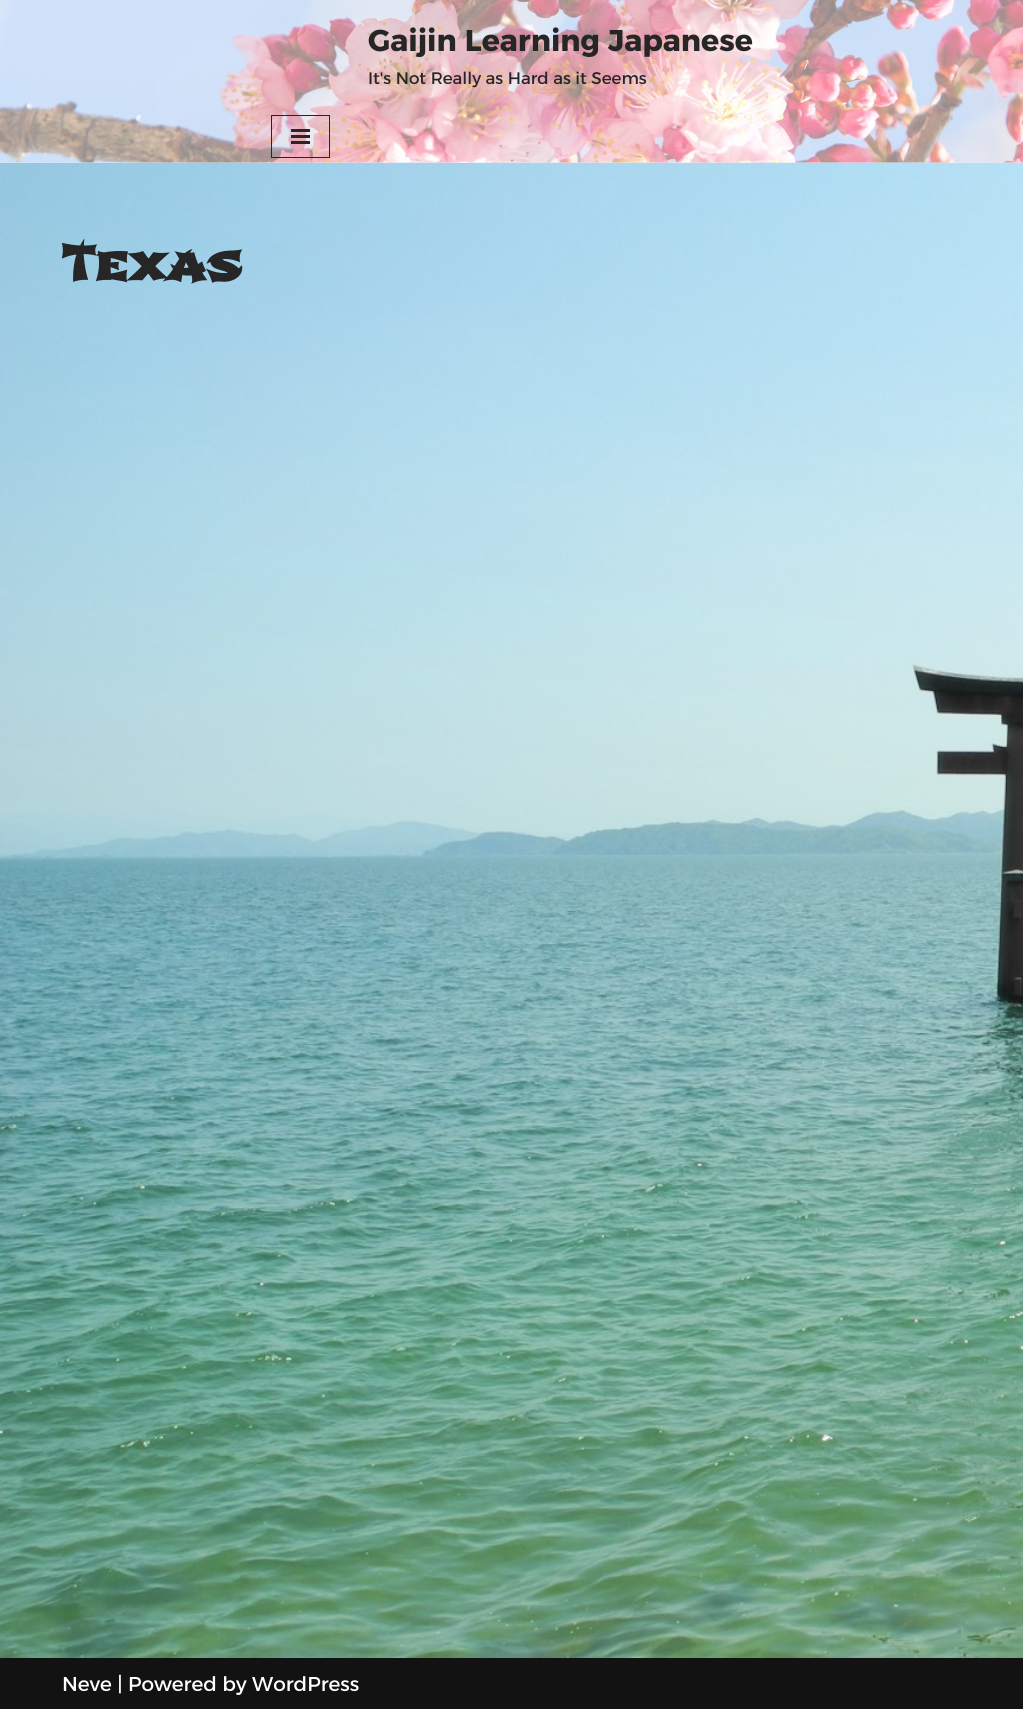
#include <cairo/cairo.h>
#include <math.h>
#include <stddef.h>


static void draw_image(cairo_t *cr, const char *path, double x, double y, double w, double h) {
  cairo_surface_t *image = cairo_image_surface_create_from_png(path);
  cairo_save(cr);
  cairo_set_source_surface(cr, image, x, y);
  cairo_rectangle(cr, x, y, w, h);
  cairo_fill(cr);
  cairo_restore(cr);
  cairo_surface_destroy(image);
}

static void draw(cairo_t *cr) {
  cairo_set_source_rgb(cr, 1, 1, 1);
  cairo_paint(cr);
  draw_image(cr, "images/1.png", 0, 162, 1023, 1496);
  draw_image(cr, "images/2.png", 0, 0, 1023, 163);
  cairo_set_source_rgba(cr, 1, 1, 1, 0.55);
  cairo_rectangle(cr, 0, 0, 1023, 163);
  cairo_fill(cr);
  cairo_rectangle(cr, 271.5, 115.5, 58, 42);
  cairo_set_source_rgb(cr, 39 / 255.0, 38 / 255.0, 38 / 255.0);
  cairo_set_line_width(cr, 1);
  cairo_stroke(cr);
  cairo_rectangle(cr, 291, 129, 19, 3);
  cairo_fill(cr);
  cairo_rectangle(cr, 291, 135, 19, 3);
  cairo_fill(cr);
  cairo_rectangle(cr, 291, 141, 19, 3);
  cairo_fill(cr);
  cairo_set_source_rgb(cr, 18 / 255.0, 18 / 255.0, 18 / 255.0);
  cairo_rectangle(cr, 0, 1658, 1023, 51);
  cairo_fill(cr);
  cairo_select_font_face(cr, "Alexandria", CAIRO_FONT_SLANT_NORMAL, CAIRO_FONT_WEIGHT_BOLD);
  cairo_set_font_size(cr, 30);
  cairo_set_source_rgb(cr, 39 / 255.0, 38 / 255.0, 38 / 255.0);
  cairo_move_to(cr, 368, 51);
  cairo_show_text(cr, "Gaijin Learning Japanese");
  cairo_select_font_face(cr, "Alexandria", CAIRO_FONT_SLANT_NORMAL, CAIRO_FONT_WEIGHT_NORMAL);
  cairo_set_font_size(cr, 16.7);
  cairo_move_to(cr, 368, 84);
  cairo_show_text(cr, "It's Not Really as Hard as it Seems");
  cairo_select_font_face(cr, "Shojumaru", CAIRO_FONT_SLANT_NORMAL, CAIRO_FONT_WEIGHT_BOLD);
  cairo_set_font_size(cr, 47.5);
  cairo_move_to(cr, 62, 280);
  cairo_show_text(cr, "Texas");
  cairo_select_font_face(cr, "Alexandria", CAIRO_FONT_SLANT_NORMAL, CAIRO_FONT_WEIGHT_NORMAL);
  cairo_set_font_size(cr, 20);
  cairo_set_source_rgb(cr, 1, 1, 1);
  cairo_move_to(cr, 62, 1691);
  cairo_show_text(cr, "Neve | Powered by WordPress");
}

int main(void) {
  cairo_surface_t *surface = cairo_image_surface_create(CAIRO_FORMAT_RGB24, 1023, 1709);
  cairo_t *cr = cairo_create(surface);
  cairo_font_options_t *options = cairo_font_options_create();
  cairo_font_options_set_hint_metrics(options, CAIRO_HINT_METRICS_OFF);
  cairo_font_options_set_hint_style(options, CAIRO_HINT_STYLE_NONE);
  cairo_set_font_options(cr, options);
  cairo_set_miter_limit(cr, 4);
  draw(cr);
  cairo_surface_write_to_png(surface, "out.png");
  cairo_font_options_destroy(options);
  cairo_destroy(cr);
  cairo_surface_destroy(surface);
  return 0;
}
